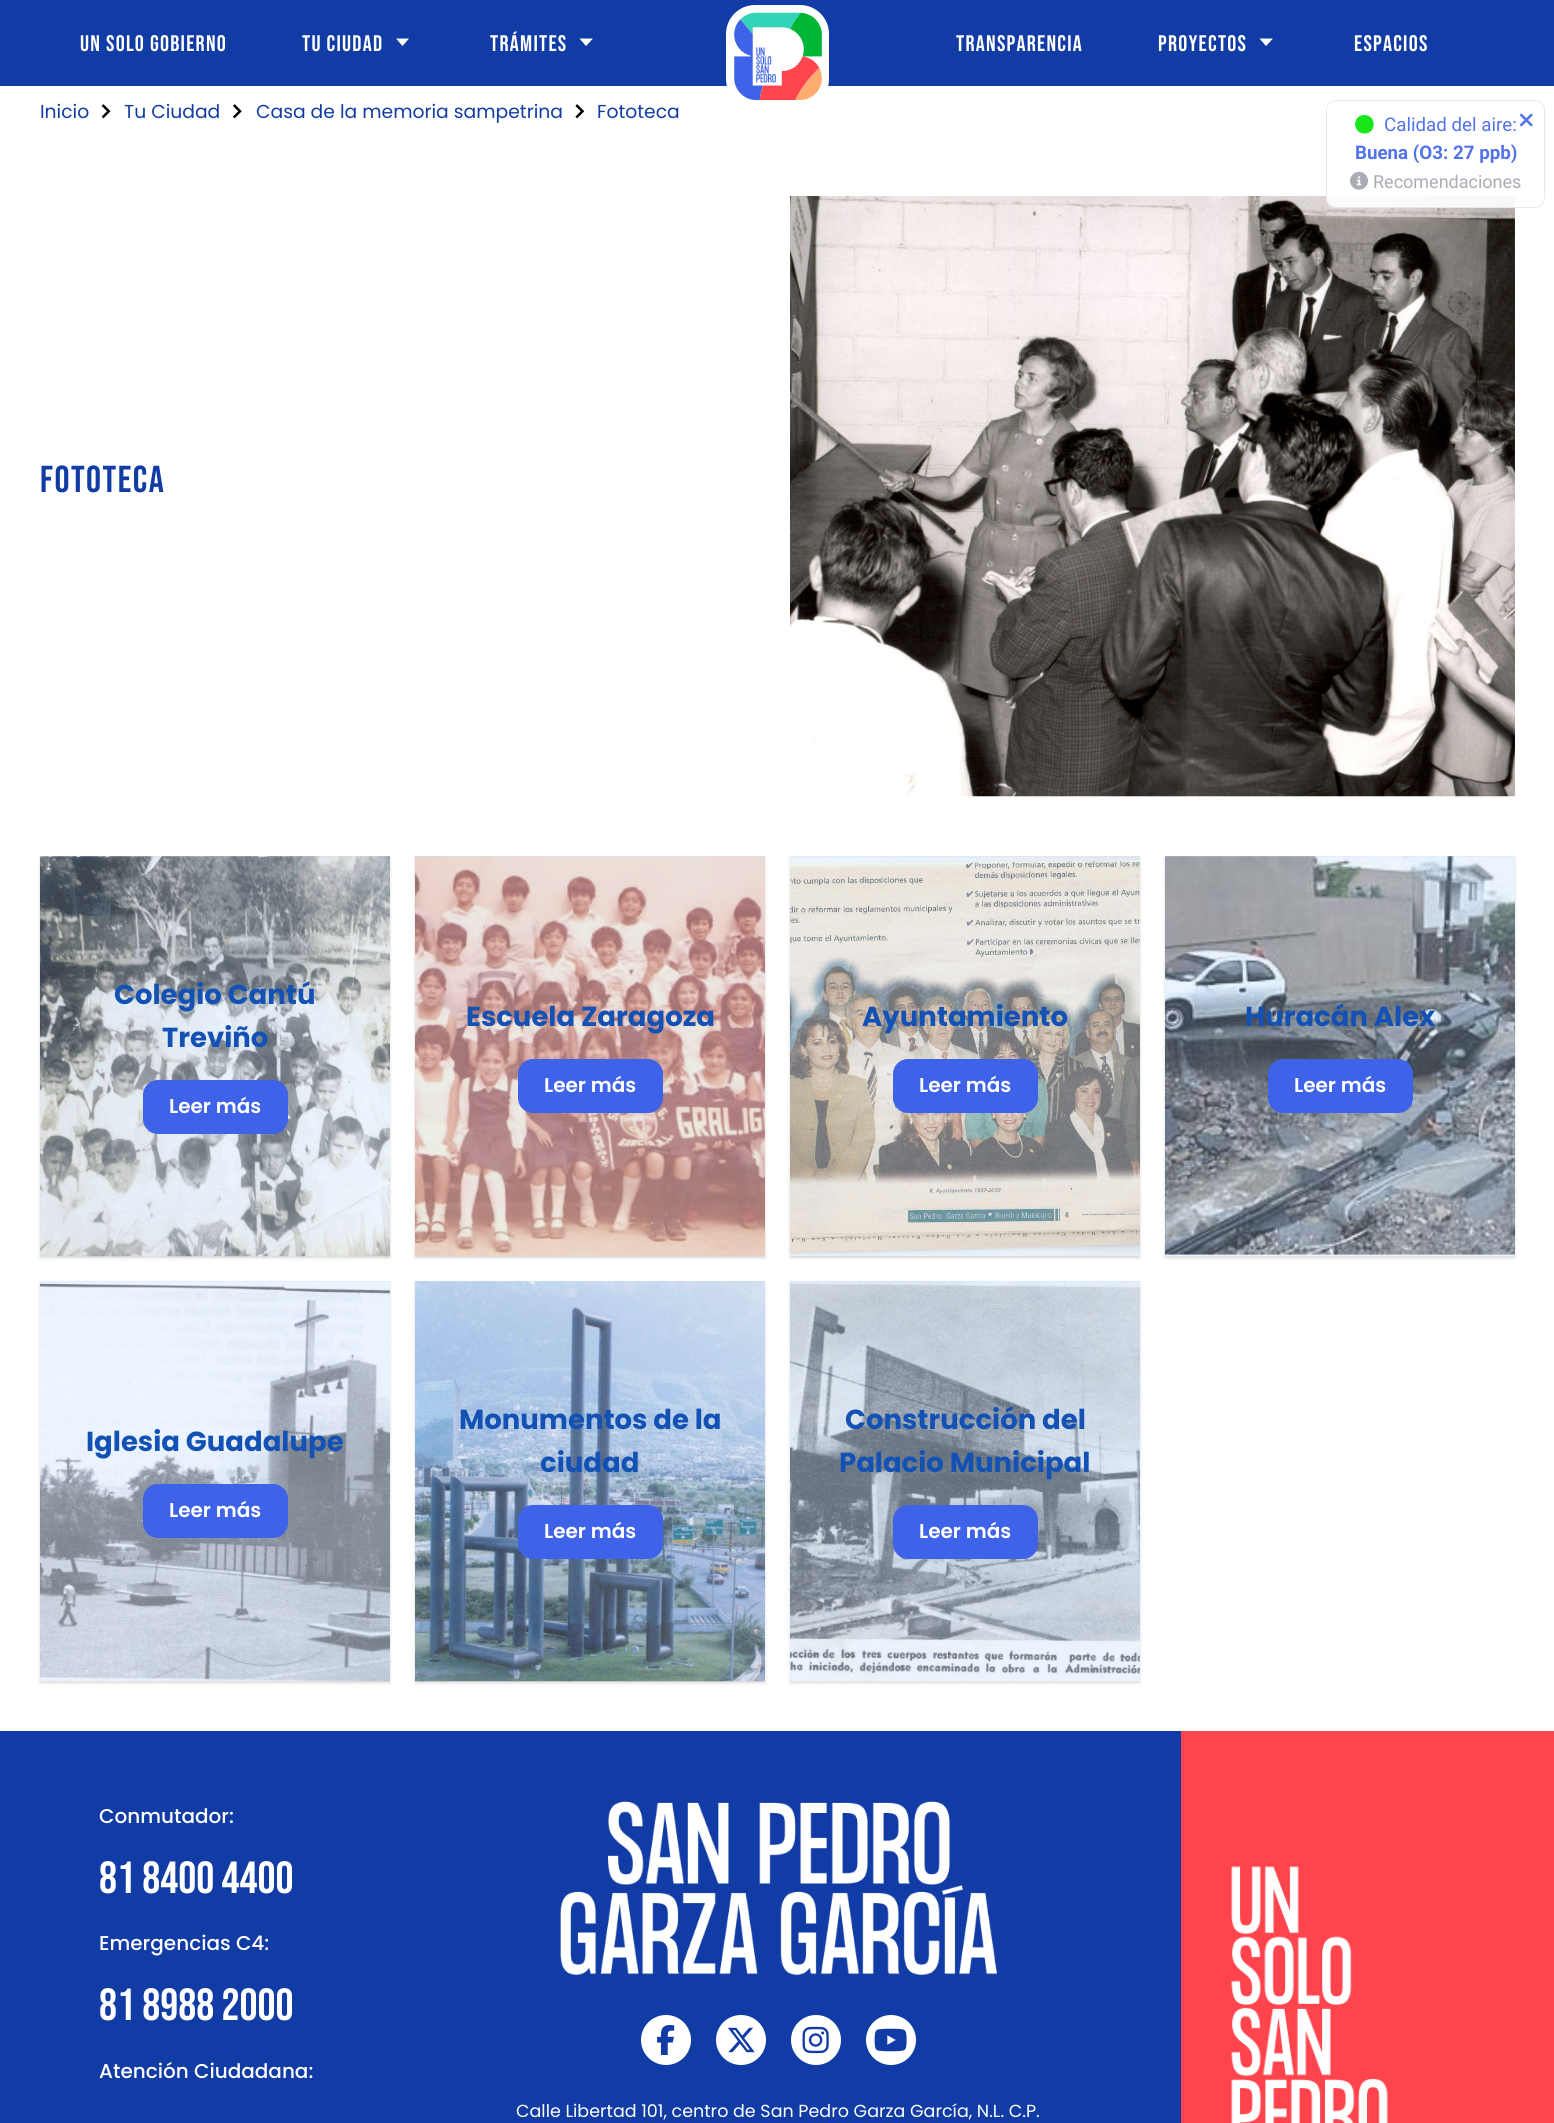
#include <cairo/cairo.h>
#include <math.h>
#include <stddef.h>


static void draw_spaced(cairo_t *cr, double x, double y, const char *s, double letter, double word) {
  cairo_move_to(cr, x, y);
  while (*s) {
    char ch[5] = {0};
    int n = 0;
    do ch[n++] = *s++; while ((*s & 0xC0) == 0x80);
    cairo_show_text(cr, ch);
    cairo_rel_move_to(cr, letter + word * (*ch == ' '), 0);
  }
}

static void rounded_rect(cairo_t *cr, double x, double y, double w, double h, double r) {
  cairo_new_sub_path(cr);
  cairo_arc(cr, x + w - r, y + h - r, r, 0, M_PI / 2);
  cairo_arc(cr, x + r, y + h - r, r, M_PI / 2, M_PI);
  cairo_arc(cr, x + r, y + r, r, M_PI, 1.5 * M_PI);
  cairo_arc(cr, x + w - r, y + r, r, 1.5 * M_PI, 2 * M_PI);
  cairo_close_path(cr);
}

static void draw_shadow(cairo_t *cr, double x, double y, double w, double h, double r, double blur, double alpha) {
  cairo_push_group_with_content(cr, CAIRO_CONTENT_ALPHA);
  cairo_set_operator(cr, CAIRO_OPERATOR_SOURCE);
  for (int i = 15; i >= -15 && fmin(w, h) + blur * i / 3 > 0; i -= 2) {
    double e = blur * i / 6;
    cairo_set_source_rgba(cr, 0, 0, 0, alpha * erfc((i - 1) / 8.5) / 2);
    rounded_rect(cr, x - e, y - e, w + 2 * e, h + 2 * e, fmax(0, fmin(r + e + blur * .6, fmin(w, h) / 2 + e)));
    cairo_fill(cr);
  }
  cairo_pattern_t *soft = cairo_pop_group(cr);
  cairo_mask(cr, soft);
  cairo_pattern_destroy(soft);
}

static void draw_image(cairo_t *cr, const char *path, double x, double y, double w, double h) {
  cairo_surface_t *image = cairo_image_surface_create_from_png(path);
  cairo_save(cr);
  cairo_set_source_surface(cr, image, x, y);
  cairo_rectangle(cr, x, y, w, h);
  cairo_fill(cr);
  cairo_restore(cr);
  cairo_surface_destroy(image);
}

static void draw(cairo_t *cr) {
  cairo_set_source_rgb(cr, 1, 1, 1);
  cairo_paint(cr);
  cairo_set_source_rgb(cr, 17 / 255.0, 60 / 255.0, 165 / 255.0);
  cairo_rectangle(cr, 0, 0, 1554, 86);
  cairo_fill(cr);
  cairo_set_source_rgb(cr, 1, 1, 1);
  cairo_new_path(cr);
  cairo_move_to(cr, 402.5, 46);
  cairo_line_to(cr, 409, 38.5);
  cairo_line_to(cr, 396, 38.5);
  cairo_close_path(cr);
  cairo_fill(cr);
  cairo_new_path(cr);
  cairo_move_to(cr, 586, 46);
  cairo_line_to(cr, 593, 38.5);
  cairo_line_to(cr, 579.5, 38.5);
  cairo_close_path(cr);
  cairo_fill(cr);
  rounded_rect(cr, 726, 5, 103, 103, 29);
  cairo_fill(cr);
  draw_image(cr, "images/1.png", 734, 12, 88, 89);
  cairo_new_path(cr);
  cairo_move_to(cr, 1266, 46);
  cairo_line_to(cr, 1273, 38.5);
  cairo_line_to(cr, 1259.5, 38.5);
  cairo_close_path(cr);
  cairo_fill(cr);
  draw_image(cr, "images/7.png", 790, 196, 725, 601);
  cairo_set_source_rgba(cr, 1, 1, 1, 0.9);
  rounded_rect(cr, 1326, 100, 219, 108, 10);
  cairo_fill(cr);
  rounded_rect(cr, 1326.5, 100.5, 218, 107, 9.5);
  cairo_set_source_rgba(cr, 229 / 255.0, 231 / 255.0, 235 / 255.0, 0.9);
  cairo_set_line_width(cr, 1);
  cairo_stroke(cr);
  cairo_set_source_rgb(cr, 26 / 255.0, 231 / 255.0, 26 / 255.0);
  cairo_new_path(cr);
  cairo_move_to(cr, 1364.5, 133.5);
  cairo_curve_to(cr, 1377, 133.5, 1376.5, 115, 1364.5, 115);
  cairo_curve_to(cr, 1352, 115, 1352, 133.5, 1364.5, 133.5);
  cairo_close_path(cr);
  cairo_fill(cr);
  draw_image(cr, "images/2.png", 1350, 171, 18, 19);
  draw_image(cr, "images/3.png", 1520, 113, 13, 14);
  draw_image(cr, "images/4.png", 101, 104, 10, 15);
  draw_image(cr, "images/5.png", 233, 104, 9, 15);
  draw_image(cr, "images/6.png", 575, 104, 10, 15);
  cairo_set_source_rgb(cr, 0, 0, 0);
  draw_shadow(cr, 40, 858, 350, 400, 0, 1, 0.06);
  draw_shadow(cr, 40, 858, 350, 400, 0, 2, 0.1);
  cairo_set_source_rgb(cr, 193 / 255.0, 222 / 255.0, 254 / 255.0);
  cairo_rectangle(cr, 40, 856, 350, 400);
  cairo_fill(cr);
  draw_image(cr, "images/8.png", 40, 856, 350, 401);
  cairo_set_source_rgb(cr, 63 / 255.0, 99 / 255.0, 232 / 255.0);
  rounded_rect(cr, 143.5, 1080.5, 144, 53, 14.5);
  cairo_fill_preserve(cr);
  cairo_stroke(cr);
  cairo_set_source_rgb(cr, 0, 0, 0);
  draw_shadow(cr, 415, 858, 350, 400, 0, 1, 0.06);
  draw_shadow(cr, 415, 858, 350, 400, 0, 2, 0.1);
  cairo_set_source_rgb(cr, 193 / 255.0, 222 / 255.0, 254 / 255.0);
  cairo_rectangle(cr, 415, 856, 350, 400);
  cairo_fill(cr);
  draw_image(cr, "images/9.png", 415, 856, 350, 401);
  cairo_set_source_rgb(cr, 63 / 255.0, 99 / 255.0, 232 / 255.0);
  rounded_rect(cr, 518.5, 1059.5, 144, 53, 14.5);
  cairo_fill_preserve(cr);
  cairo_stroke(cr);
  cairo_set_source_rgb(cr, 0, 0, 0);
  draw_shadow(cr, 790, 858, 350, 400, 0, 1, 0.06);
  draw_shadow(cr, 790, 858, 350, 400, 0, 2, 0.1);
  cairo_set_source_rgb(cr, 193 / 255.0, 222 / 255.0, 254 / 255.0);
  cairo_rectangle(cr, 790, 856, 350, 400);
  cairo_fill(cr);
  draw_image(cr, "images/10.png", 790, 856, 350, 400);
  cairo_set_source_rgb(cr, 63 / 255.0, 99 / 255.0, 232 / 255.0);
  rounded_rect(cr, 893.5, 1059.5, 144, 53, 14.5);
  cairo_fill_preserve(cr);
  cairo_stroke(cr);
  cairo_set_source_rgb(cr, 0, 0, 0);
  draw_shadow(cr, 1165, 858, 350, 400, 0, 1, 0.06);
  draw_shadow(cr, 1165, 858, 350, 400, 0, 2, 0.1);
  cairo_set_source_rgb(cr, 193 / 255.0, 222 / 255.0, 254 / 255.0);
  cairo_rectangle(cr, 1165, 856, 350, 400);
  cairo_fill(cr);
  draw_image(cr, "images/11.png", 1165, 856, 350, 401);
  cairo_set_source_rgb(cr, 63 / 255.0, 99 / 255.0, 232 / 255.0);
  rounded_rect(cr, 1268.5, 1059.5, 144, 53, 14.5);
  cairo_fill_preserve(cr);
  cairo_stroke(cr);
  cairo_set_source_rgb(cr, 0, 0, 0);
  draw_shadow(cr, 40, 1283, 350, 400, 0, 1, 0.06);
  draw_shadow(cr, 40, 1283, 350, 400, 0, 2, 0.1);
  cairo_set_source_rgb(cr, 193 / 255.0, 222 / 255.0, 254 / 255.0);
  cairo_rectangle(cr, 40, 1281, 350, 400);
  cairo_fill(cr);
  draw_image(cr, "images/12.png", 40, 1281, 350, 401);
  cairo_set_source_rgb(cr, 63 / 255.0, 99 / 255.0, 232 / 255.0);
  rounded_rect(cr, 143.5, 1484.5, 144, 53, 14.5);
  cairo_fill_preserve(cr);
  cairo_stroke(cr);
  cairo_set_source_rgb(cr, 0, 0, 0);
  draw_shadow(cr, 415, 1283, 350, 400, 0, 1, 0.06);
  draw_shadow(cr, 415, 1283, 350, 400, 0, 2, 0.1);
  cairo_set_source_rgb(cr, 193 / 255.0, 222 / 255.0, 254 / 255.0);
  cairo_rectangle(cr, 415, 1281, 350, 400);
  cairo_fill(cr);
  draw_image(cr, "images/13.png", 415, 1281, 350, 401);
  cairo_set_source_rgb(cr, 63 / 255.0, 99 / 255.0, 232 / 255.0);
  rounded_rect(cr, 518.5, 1505.5, 144, 53, 14.5);
  cairo_fill_preserve(cr);
  cairo_stroke(cr);
  cairo_set_source_rgb(cr, 0, 0, 0);
  draw_shadow(cr, 790, 1283, 350, 400, 0, 1, 0.06);
  draw_shadow(cr, 790, 1283, 350, 400, 0, 2, 0.1);
  cairo_set_source_rgb(cr, 193 / 255.0, 222 / 255.0, 254 / 255.0);
  cairo_rectangle(cr, 790, 1281, 350, 400);
  cairo_fill(cr);
  draw_image(cr, "images/14.png", 790, 1281, 350, 401);
  cairo_set_source_rgb(cr, 63 / 255.0, 99 / 255.0, 232 / 255.0);
  rounded_rect(cr, 893.5, 1505.5, 144, 53, 14.5);
  cairo_fill_preserve(cr);
  cairo_stroke(cr);
  cairo_set_source_rgb(cr, 17 / 255.0, 60 / 255.0, 165 / 255.0);
  cairo_rectangle(cr, 0, 1731, 1181, 392);
  cairo_fill(cr);
  draw_image(cr, "images/15.png", 560, 1801, 437, 174);
  cairo_set_source_rgb(cr, 1, 1, 1);
  cairo_arc(cr, 666, 2040, 25, 0, 2 * M_PI);
  cairo_fill(cr);
  draw_image(cr, "images/16.png", 657, 2025, 18, 30);
  cairo_arc(cr, 741, 2040, 25, 0, 2 * M_PI);
  cairo_fill(cr);
  draw_image(cr, "images/17.png", 728, 2027, 27, 26);
  cairo_arc(cr, 816, 2040, 25, 0, 2 * M_PI);
  cairo_fill(cr);
  draw_image(cr, "images/18.png", 802, 2026, 27, 28);
  cairo_arc(cr, 891, 2040, 25, 0, 2 * M_PI);
  cairo_fill(cr);
  draw_image(cr, "images/19.png", 874, 2028, 33, 24);
  cairo_set_source_rgb(cr, 1, 68 / 255.0, 78 / 255.0);
  cairo_rectangle(cr, 1181, 1731, 373, 392);
  cairo_fill(cr);
  draw_image(cr, "images/20.png", 1231, 1866, 157, 257);
  cairo_select_font_face(cr, "Bebas Neue", CAIRO_FONT_SLANT_NORMAL, CAIRO_FONT_WEIGHT_NORMAL);
  cairo_set_font_size(cr, 22.5);
  cairo_set_source_rgb(cr, 1, 1, 1);
  draw_spaced(cr, 80, 51, "Un Solo Gobierno", 1.25, 0);
  draw_spaced(cr, 302, 51, "Tu Ciudad", 1.25, 0);
  draw_spaced(cr, 490, 51, "Trámites", 1.25, 0);
  draw_spaced(cr, 956, 51, "Transparencia", 1.25, 0);
  draw_spaced(cr, 1158, 51, "Proyectos", 1.25, 0);
  draw_spaced(cr, 1354, 51, "Espacios", 1.25, 0);
  cairo_select_font_face(cr, "Roboto", CAIRO_FONT_SLANT_NORMAL, CAIRO_FONT_WEIGHT_NORMAL);
  cairo_set_font_size(cr, 18.75);
  cairo_set_source_rgb(cr, 82 / 255.0, 115 / 255.0, 234 / 255.0);
  cairo_move_to(cr, 1384, 131);
  cairo_show_text(cr, "Calidad del aire:");
  cairo_select_font_face(cr, "Roboto", CAIRO_FONT_SLANT_NORMAL, CAIRO_FONT_WEIGHT_BOLD);
  cairo_move_to(cr, 1355, 159);
  cairo_show_text(cr, "Buena (O3: 27 ppb)");
  cairo_select_font_face(cr, "Roboto", CAIRO_FONT_SLANT_NORMAL, CAIRO_FONT_WEIGHT_NORMAL);
  cairo_set_font_size(cr, 18);
  cairo_set_source_rgb(cr, 171 / 255.0, 173 / 255.0, 181 / 255.0);
  cairo_move_to(cr, 1373, 188);
  cairo_show_text(cr, "Recomendaciones");
  cairo_select_font_face(cr, "Poppins", CAIRO_FONT_SLANT_NORMAL, CAIRO_FONT_WEIGHT_NORMAL);
  cairo_set_font_size(cr, 18.75);
  cairo_set_source_rgb(cr, 17 / 255.0, 60 / 255.0, 165 / 255.0);
  cairo_move_to(cr, 40, 118);
  cairo_show_text(cr, "Inicio");
  cairo_move_to(cr, 124, 118);
  cairo_show_text(cr, "Tu Ciudad");
  cairo_move_to(cr, 256, 118);
  cairo_show_text(cr, "Casa de la memoria sampetrina");
  cairo_move_to(cr, 597, 118);
  cairo_show_text(cr, "Fototeca");
  cairo_select_font_face(cr, "Bebas Neue", CAIRO_FONT_SLANT_NORMAL, CAIRO_FONT_WEIGHT_NORMAL);
  cairo_set_font_size(cr, 37.5);
  draw_spaced(cr, 40, 492, "Fototeca", 1.5, 0);
  cairo_select_font_face(cr, "Poppins", CAIRO_FONT_SLANT_NORMAL, CAIRO_FONT_WEIGHT_BOLD);
  cairo_set_font_size(cr, 27.5);
  cairo_set_source_rgb(cr, 19 / 255.0, 82 / 255.0, 180 / 255.0);
  cairo_move_to(cr, 114, 1004);
  cairo_show_text(cr, "Colegio Cantú");
  cairo_move_to(cr, 162, 1047);
  cairo_show_text(cr, "Treviño");
  cairo_select_font_face(cr, "Poppins SemiBold", CAIRO_FONT_SLANT_NORMAL, CAIRO_FONT_WEIGHT_NORMAL);
  cairo_set_font_size(cr, 20);
  cairo_set_source_rgb(cr, 1, 1, 1);
  cairo_move_to(cr, 169, 1113);
  cairo_show_text(cr, "Leer más");
  cairo_select_font_face(cr, "Poppins", CAIRO_FONT_SLANT_NORMAL, CAIRO_FONT_WEIGHT_BOLD);
  cairo_set_font_size(cr, 27.5);
  cairo_set_source_rgb(cr, 19 / 255.0, 82 / 255.0, 180 / 255.0);
  cairo_move_to(cr, 466, 1026);
  cairo_show_text(cr, "Escuela Zaragoza");
  cairo_select_font_face(cr, "Poppins SemiBold", CAIRO_FONT_SLANT_NORMAL, CAIRO_FONT_WEIGHT_NORMAL);
  cairo_set_font_size(cr, 20);
  cairo_set_source_rgb(cr, 1, 1, 1);
  cairo_move_to(cr, 544, 1092);
  cairo_show_text(cr, "Leer más");
  cairo_select_font_face(cr, "Poppins", CAIRO_FONT_SLANT_NORMAL, CAIRO_FONT_WEIGHT_BOLD);
  cairo_set_font_size(cr, 27.5);
  cairo_set_source_rgb(cr, 19 / 255.0, 82 / 255.0, 180 / 255.0);
  cairo_move_to(cr, 862, 1026);
  cairo_show_text(cr, "Ayuntamiento");
  cairo_select_font_face(cr, "Poppins SemiBold", CAIRO_FONT_SLANT_NORMAL, CAIRO_FONT_WEIGHT_NORMAL);
  cairo_set_font_size(cr, 20);
  cairo_set_source_rgb(cr, 1, 1, 1);
  cairo_move_to(cr, 919, 1092);
  cairo_show_text(cr, "Leer más");
  cairo_select_font_face(cr, "Poppins", CAIRO_FONT_SLANT_NORMAL, CAIRO_FONT_WEIGHT_BOLD);
  cairo_set_font_size(cr, 27.5);
  cairo_set_source_rgb(cr, 19 / 255.0, 82 / 255.0, 180 / 255.0);
  cairo_move_to(cr, 1245, 1026);
  cairo_show_text(cr, "Huracán Alex");
  cairo_select_font_face(cr, "Poppins SemiBold", CAIRO_FONT_SLANT_NORMAL, CAIRO_FONT_WEIGHT_NORMAL);
  cairo_set_font_size(cr, 20);
  cairo_set_source_rgb(cr, 1, 1, 1);
  cairo_move_to(cr, 1294, 1092);
  cairo_show_text(cr, "Leer más");
  cairo_select_font_face(cr, "Poppins", CAIRO_FONT_SLANT_NORMAL, CAIRO_FONT_WEIGHT_BOLD);
  cairo_set_font_size(cr, 27.5);
  cairo_set_source_rgb(cr, 19 / 255.0, 82 / 255.0, 180 / 255.0);
  cairo_move_to(cr, 86, 1451);
  cairo_show_text(cr, "Iglesia Guadalupe");
  cairo_select_font_face(cr, "Poppins SemiBold", CAIRO_FONT_SLANT_NORMAL, CAIRO_FONT_WEIGHT_NORMAL);
  cairo_set_font_size(cr, 20);
  cairo_set_source_rgb(cr, 1, 1, 1);
  cairo_move_to(cr, 169, 1517);
  cairo_show_text(cr, "Leer más");
  cairo_select_font_face(cr, "Poppins", CAIRO_FONT_SLANT_NORMAL, CAIRO_FONT_WEIGHT_BOLD);
  cairo_set_font_size(cr, 27.5);
  cairo_set_source_rgb(cr, 19 / 255.0, 82 / 255.0, 180 / 255.0);
  cairo_move_to(cr, 459, 1429);
  cairo_show_text(cr, "Monumentos de la");
  cairo_move_to(cr, 540, 1472);
  cairo_show_text(cr, "ciudad");
  cairo_select_font_face(cr, "Poppins SemiBold", CAIRO_FONT_SLANT_NORMAL, CAIRO_FONT_WEIGHT_NORMAL);
  cairo_set_font_size(cr, 20);
  cairo_set_source_rgb(cr, 1, 1, 1);
  cairo_move_to(cr, 544, 1538);
  cairo_show_text(cr, "Leer más");
  cairo_select_font_face(cr, "Poppins", CAIRO_FONT_SLANT_NORMAL, CAIRO_FONT_WEIGHT_BOLD);
  cairo_set_font_size(cr, 27.5);
  cairo_set_source_rgb(cr, 19 / 255.0, 82 / 255.0, 180 / 255.0);
  cairo_move_to(cr, 845, 1429);
  cairo_show_text(cr, "Construcción del");
  cairo_move_to(cr, 839, 1472);
  cairo_show_text(cr, "Palacio Municipal");
  cairo_select_font_face(cr, "Poppins SemiBold", CAIRO_FONT_SLANT_NORMAL, CAIRO_FONT_WEIGHT_NORMAL);
  cairo_set_font_size(cr, 20);
  cairo_set_source_rgb(cr, 1, 1, 1);
  cairo_move_to(cr, 919, 1538);
  cairo_show_text(cr, "Leer más");
  cairo_select_font_face(cr, "Poppins Medium", CAIRO_FONT_SLANT_NORMAL, CAIRO_FONT_WEIGHT_NORMAL);
  cairo_move_to(cr, 99, 1823);
  cairo_show_text(cr, "Conmutador:");
  cairo_select_font_face(cr, "Bebas Neue", CAIRO_FONT_SLANT_NORMAL, CAIRO_FONT_WEIGHT_NORMAL);
  cairo_set_font_size(cr, 45);
  cairo_move_to(cr, 99, 1893);
  cairo_show_text(cr, "81 8400 4400");
  cairo_select_font_face(cr, "Poppins Medium", CAIRO_FONT_SLANT_NORMAL, CAIRO_FONT_WEIGHT_NORMAL);
  cairo_set_font_size(cr, 20);
  cairo_move_to(cr, 99, 1950);
  cairo_show_text(cr, "Emergencias C4:");
  cairo_select_font_face(cr, "Bebas Neue", CAIRO_FONT_SLANT_NORMAL, CAIRO_FONT_WEIGHT_NORMAL);
  cairo_set_font_size(cr, 45);
  cairo_move_to(cr, 99, 2020);
  cairo_show_text(cr, "81 8988 2000");
  cairo_select_font_face(cr, "Poppins Medium", CAIRO_FONT_SLANT_NORMAL, CAIRO_FONT_WEIGHT_NORMAL);
  cairo_set_font_size(cr, 20);
  cairo_move_to(cr, 99, 2078);
  cairo_show_text(cr, "Atención Ciudadana:");
  cairo_select_font_face(cr, "Poppins", CAIRO_FONT_SLANT_NORMAL, CAIRO_FONT_WEIGHT_NORMAL);
  cairo_set_font_size(cr, 17.5);
  cairo_move_to(cr, 516, 2117);
  cairo_show_text(cr, "Calle Libertad 101, centro de San Pedro Garza García, N.L. C.P.");
}

int main(void) {
  cairo_surface_t *surface = cairo_image_surface_create(CAIRO_FORMAT_RGB24, 1554, 2123);
  cairo_t *cr = cairo_create(surface);
  cairo_font_options_t *options = cairo_font_options_create();
  cairo_font_options_set_hint_metrics(options, CAIRO_HINT_METRICS_OFF);
  cairo_font_options_set_hint_style(options, CAIRO_HINT_STYLE_NONE);
  cairo_set_font_options(cr, options);
  cairo_set_miter_limit(cr, 4);
  draw(cr);
  cairo_surface_write_to_png(surface, "out.png");
  cairo_font_options_destroy(options);
  cairo_destroy(cr);
  cairo_surface_destroy(surface);
  return 0;
}
